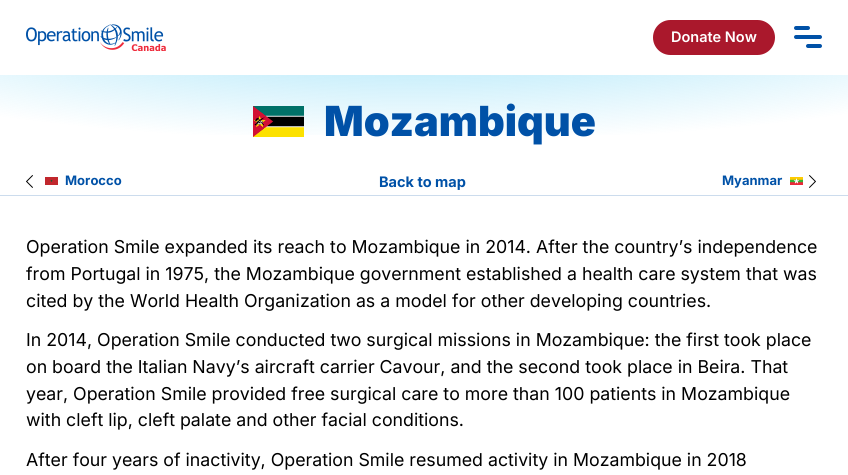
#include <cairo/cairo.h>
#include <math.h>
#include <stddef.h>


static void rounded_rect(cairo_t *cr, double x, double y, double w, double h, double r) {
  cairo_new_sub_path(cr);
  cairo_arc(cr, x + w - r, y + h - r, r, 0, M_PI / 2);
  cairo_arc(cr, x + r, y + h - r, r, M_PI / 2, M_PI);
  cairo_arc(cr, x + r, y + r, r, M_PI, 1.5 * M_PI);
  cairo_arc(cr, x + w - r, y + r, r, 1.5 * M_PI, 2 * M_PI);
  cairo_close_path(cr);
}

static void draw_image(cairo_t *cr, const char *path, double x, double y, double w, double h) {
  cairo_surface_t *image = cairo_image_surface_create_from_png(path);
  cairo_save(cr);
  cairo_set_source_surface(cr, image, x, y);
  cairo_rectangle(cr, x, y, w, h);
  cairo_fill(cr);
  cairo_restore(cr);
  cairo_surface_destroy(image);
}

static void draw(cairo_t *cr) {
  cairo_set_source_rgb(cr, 1, 1, 1);
  cairo_paint(cr);
  draw_image(cr, "images/1.png", 26, 24, 140, 27);
  cairo_set_source_rgb(cr, 170 / 255.0, 24 / 255.0, 44 / 255.0);
  rounded_rect(cr, 654, 21, 120, 33, 16.5);
  cairo_fill_preserve(cr);
  cairo_stroke(cr);
  cairo_set_source_rgb(cr, 0, 81 / 255.0, 167 / 255.0);
  rounded_rect(cr, 794, 26, 16, 4, 2);
  cairo_fill(cr);
  rounded_rect(cr, 794, 35, 28, 4, 2);
  cairo_fill(cr);
  rounded_rect(cr, 806, 44, 16, 4, 2);
  cairo_fill(cr);
  draw_image(cr, "images/2.png", 0, 75, 848, 60);
  draw_image(cr, "images/3.png", 253, 106, 51, 31);
  cairo_set_source_rgb(cr, 204 / 255.0, 220 / 255.0, 237 / 255.0);
  cairo_rectangle(cr, 0, 195, 848, 1);
  cairo_fill(cr);
  draw_image(cr, "images/4.png", 26, 175, 7, 13);
  draw_image(cr, "images/5.png", 45, 177, 13, 8);
  draw_image(cr, "images/6.png", 790, 177, 13, 8);
  draw_image(cr, "images/7.png", 809, 175, 7, 13);
  cairo_select_font_face(cr, "Inter SemiBold", CAIRO_FONT_SLANT_NORMAL, CAIRO_FONT_WEIGHT_NORMAL);
  cairo_set_font_size(cr, 14.5);
  cairo_set_source_rgb(cr, 1, 1, 1);
  cairo_move_to(cr, 671, 42);
  cairo_show_text(cr, "Donate Now");
  cairo_select_font_face(cr, "Inter Black", CAIRO_FONT_SLANT_NORMAL, CAIRO_FONT_WEIGHT_NORMAL);
  cairo_set_font_size(cr, 41.5);
  cairo_set_source_rgb(cr, 0, 81 / 255.0, 167 / 255.0);
  cairo_move_to(cr, 324, 136);
  cairo_show_text(cr, "Mozambique");
  cairo_select_font_face(cr, "Inter", CAIRO_FONT_SLANT_NORMAL, CAIRO_FONT_WEIGHT_BOLD);
  cairo_set_font_size(cr, 13);
  cairo_move_to(cr, 65, 185);
  cairo_show_text(cr, "Morocco");
  cairo_set_font_size(cr, 14.5);
  cairo_move_to(cr, 379, 187);
  cairo_show_text(cr, "Back to map");
  cairo_set_font_size(cr, 13);
  cairo_move_to(cr, 722, 185);
  cairo_show_text(cr, "Myanmar");
  cairo_select_font_face(cr, "Inter", CAIRO_FONT_SLANT_NORMAL, CAIRO_FONT_WEIGHT_NORMAL);
  cairo_set_font_size(cr, 17.75);
  cairo_set_source_rgb(cr, 0, 0, 0);
  cairo_move_to(cr, 26, 253);
  cairo_show_text(cr, "Operation Smile expanded its reach to Mozambique in 2014. After the country’s independence");
  cairo_move_to(cr, 26, 280);
  cairo_show_text(cr, "from Portugal in 1975, the Mozambique government established a health care system that was");
  cairo_move_to(cr, 26, 307);
  cairo_show_text(cr, "cited by the World Health Organization as a model for other developing countries.");
  cairo_move_to(cr, 26, 346);
  cairo_show_text(cr, "In 2014, Operation Smile conducted two surgical missions in Mozambique: the first took place");
  cairo_move_to(cr, 26, 373);
  cairo_show_text(cr, "on board the Italian Navy’s aircraft carrier Cavour, and the second took place in Beira. That");
  cairo_move_to(cr, 26, 400);
  cairo_show_text(cr, "year, Operation Smile provided free surgical care to more than 100 patients in Mozambique");
  cairo_move_to(cr, 26, 426);
  cairo_show_text(cr, "with cleft lip, cleft palate and other facial conditions.");
  cairo_move_to(cr, 26, 466);
  cairo_show_text(cr, "After four years of inactivity, Operation Smile resumed activity in Mozambique in 2018");
}

int main(void) {
  cairo_surface_t *surface = cairo_image_surface_create(CAIRO_FORMAT_RGB24, 848, 475);
  cairo_t *cr = cairo_create(surface);
  cairo_font_options_t *options = cairo_font_options_create();
  cairo_font_options_set_hint_metrics(options, CAIRO_HINT_METRICS_OFF);
  cairo_font_options_set_hint_style(options, CAIRO_HINT_STYLE_NONE);
  cairo_set_font_options(cr, options);
  cairo_set_miter_limit(cr, 4);
  draw(cr);
  cairo_surface_write_to_png(surface, "out.png");
  cairo_font_options_destroy(options);
  cairo_destroy(cr);
  cairo_surface_destroy(surface);
  return 0;
}
